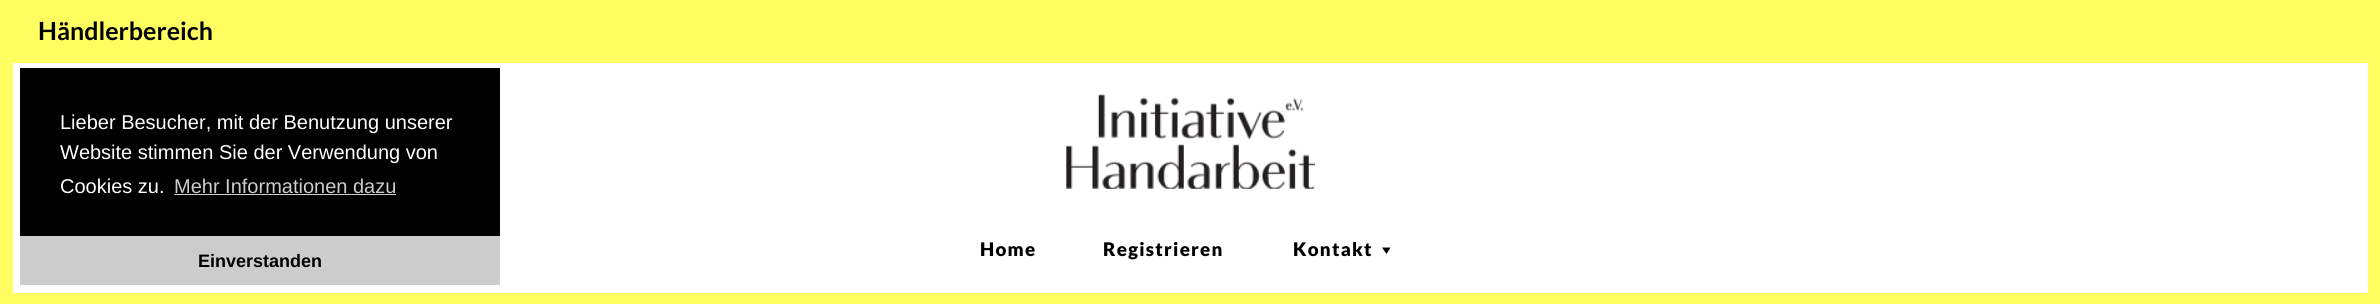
#include <cairo/cairo.h>
#include <math.h>
#include <stddef.h>


static void draw_spaced(cairo_t *cr, double x, double y, const char *s, double letter, double word) {
  cairo_move_to(cr, x, y);
  while (*s) {
    char ch[5] = {0};
    int n = 0;
    do ch[n++] = *s++; while ((*s & 0xC0) == 0x80);
    cairo_show_text(cr, ch);
    cairo_rel_move_to(cr, letter + word * (*ch == ' '), 0);
  }
}

static void draw_image(cairo_t *cr, const char *path, double x, double y, double w, double h) {
  cairo_surface_t *image = cairo_image_surface_create_from_png(path);
  cairo_save(cr);
  cairo_set_source_surface(cr, image, x, y);
  cairo_rectangle(cr, x, y, w, h);
  cairo_fill(cr);
  cairo_restore(cr);
  cairo_surface_destroy(image);
}

static void draw(cairo_t *cr) {
  cairo_set_source_rgb(cr, 1, 1, 1);
  cairo_paint(cr);
  cairo_set_source_rgb(cr, 254 / 255.0, 254 / 255.0, 97 / 255.0);
  cairo_rectangle(cr, 0, 0, 13, 304);
  cairo_fill(cr);
  cairo_rectangle(cr, 13, 0, 2355, 63);
  cairo_fill(cr);
  cairo_rectangle(cr, 2368, 0, 12, 293);
  cairo_fill(cr);
  cairo_rectangle(cr, 13, 293, 2367, 11);
  cairo_fill(cr);
  draw_image(cr, "images/1.png", 1066, 94, 249, 95);
  cairo_set_source_rgb(cr, 0, 0, 0);
  cairo_new_path(cr);
  cairo_move_to(cr, 1390.5, 247.5);
  cairo_line_to(cr, 1386.5, 254);
  cairo_line_to(cr, 1382, 247.5);
  cairo_close_path(cr);
  cairo_fill(cr);
  cairo_rectangle(cr, 20, 68, 480, 168);
  cairo_fill(cr);
  cairo_set_source_rgb(cr, 204 / 255.0, 204 / 255.0, 204 / 255.0);
  cairo_rectangle(cr, 174, 194, 222, 1);
  cairo_fill(cr);
  cairo_rectangle(cr, 20, 236, 480, 49);
  cairo_fill(cr);
  cairo_select_font_face(cr, "Lato", CAIRO_FONT_SLANT_NORMAL, CAIRO_FONT_WEIGHT_BOLD);
  cairo_set_font_size(cr, 25);
  cairo_set_source_rgb(cr, 0, 0, 0);
  cairo_move_to(cr, 38, 40);
  cairo_show_text(cr, "Händlerbereich");
  cairo_select_font_face(cr, "Lato Black", CAIRO_FONT_SLANT_NORMAL, CAIRO_FONT_WEIGHT_NORMAL);
  cairo_set_font_size(cr, 18.75);
  draw_spaced(cr, 980, 256, "Home", 1.25, 0);
  draw_spaced(cr, 1103, 256, "Registrieren", 1.25, 0);
  draw_spaced(cr, 1293, 256, "Kontakt", 1.25, 0);
  cairo_select_font_face(cr, "Liberation Sans", CAIRO_FONT_SLANT_NORMAL, CAIRO_FONT_WEIGHT_NORMAL);
  cairo_set_font_size(cr, 20);
  cairo_set_source_rgb(cr, 1, 1, 1);
  cairo_move_to(cr, 60, 129);
  cairo_show_text(cr, "Lieber Besucher, mit der Benutzung unserer");
  cairo_move_to(cr, 60, 159);
  cairo_show_text(cr, "Website stimmen Sie der Verwendung von");
  cairo_move_to(cr, 60, 193);
  cairo_show_text(cr, "Cookies zu.");
  cairo_set_source_rgb(cr, 204 / 255.0, 204 / 255.0, 204 / 255.0);
  cairo_move_to(cr, 174, 193);
  cairo_show_text(cr, "Mehr Informationen dazu");
  cairo_select_font_face(cr, "Liberation Sans", CAIRO_FONT_SLANT_NORMAL, CAIRO_FONT_WEIGHT_BOLD);
  cairo_set_font_size(cr, 18);
  cairo_set_source_rgb(cr, 0, 0, 0);
  cairo_move_to(cr, 198, 267);
  cairo_show_text(cr, "Einverstanden");
}

int main(void) {
  cairo_surface_t *surface = cairo_image_surface_create(CAIRO_FORMAT_RGB24, 2380, 304);
  cairo_t *cr = cairo_create(surface);
  cairo_font_options_t *options = cairo_font_options_create();
  cairo_font_options_set_hint_metrics(options, CAIRO_HINT_METRICS_OFF);
  cairo_font_options_set_hint_style(options, CAIRO_HINT_STYLE_NONE);
  cairo_set_font_options(cr, options);
  cairo_set_miter_limit(cr, 4);
  draw(cr);
  cairo_surface_write_to_png(surface, "out.png");
  cairo_font_options_destroy(options);
  cairo_destroy(cr);
  cairo_surface_destroy(surface);
  return 0;
}
